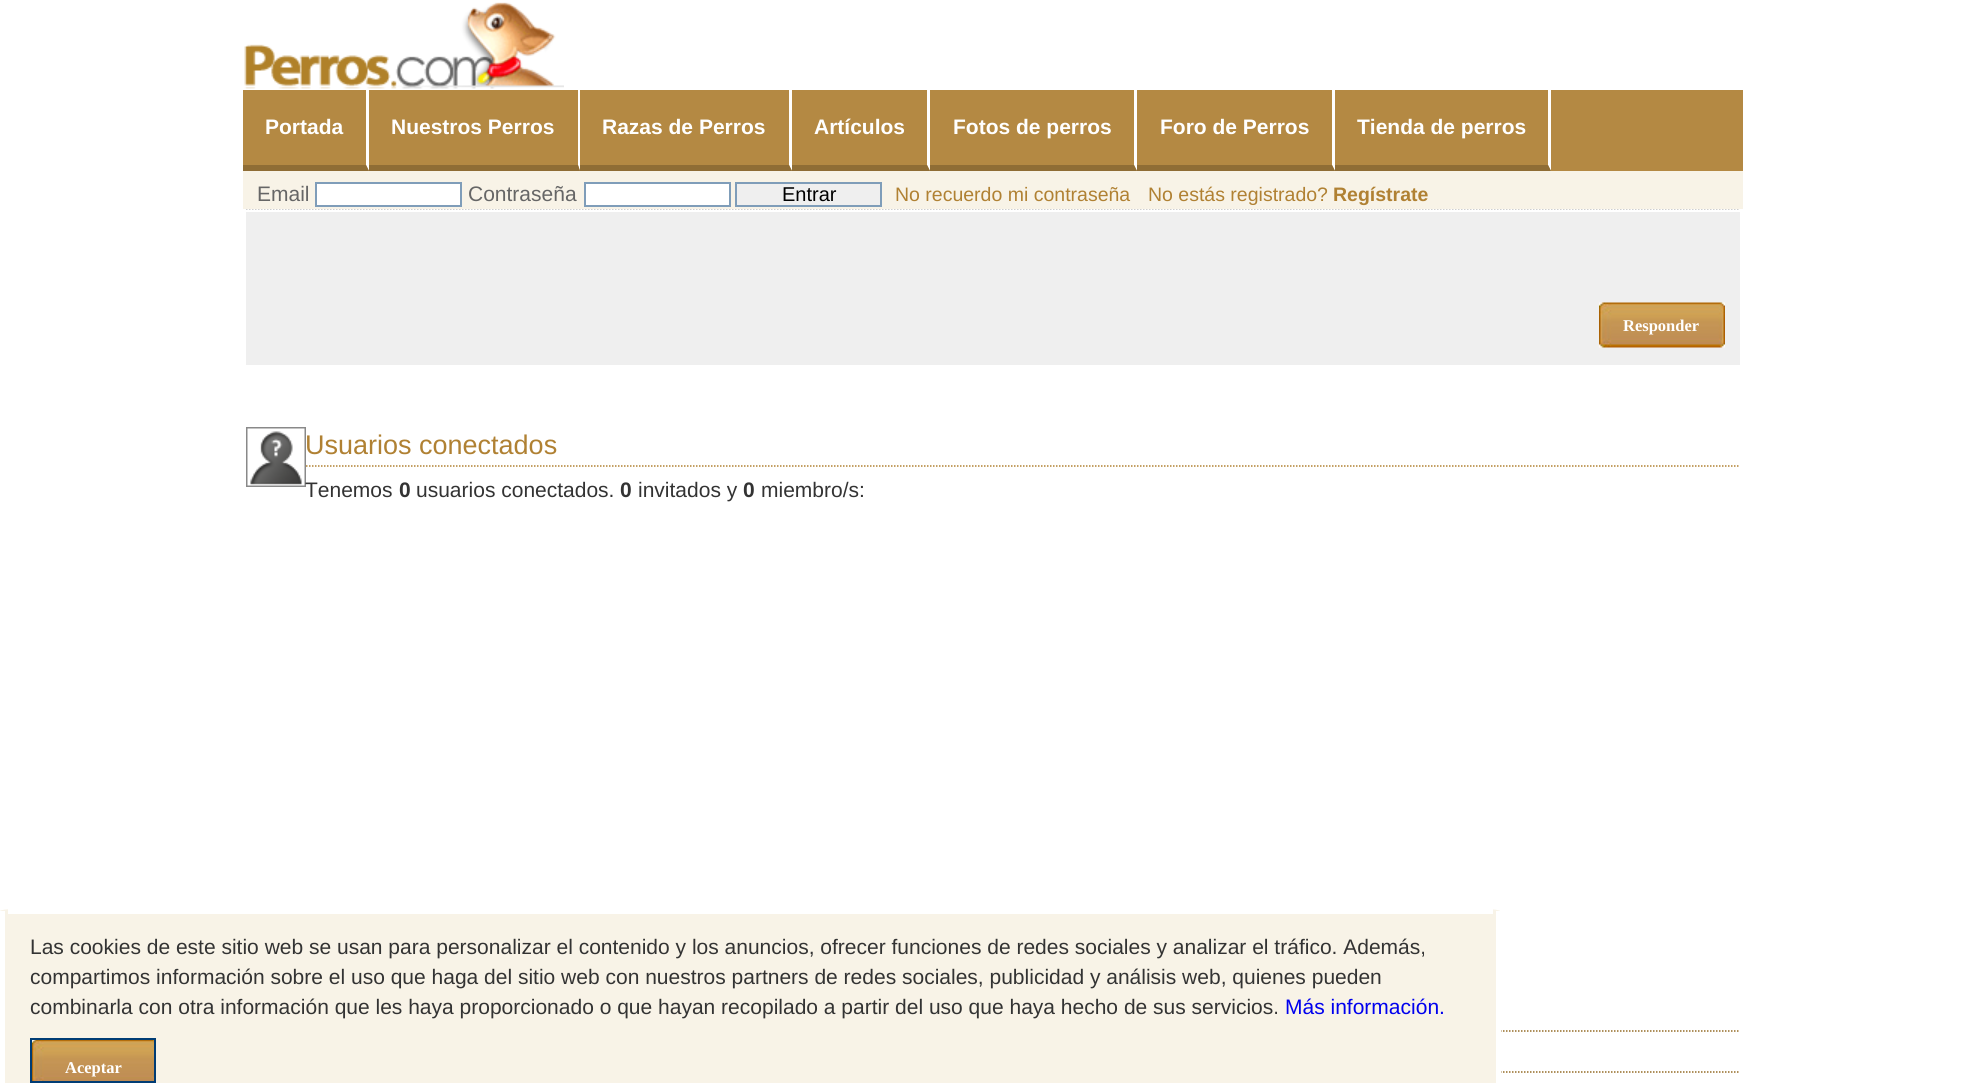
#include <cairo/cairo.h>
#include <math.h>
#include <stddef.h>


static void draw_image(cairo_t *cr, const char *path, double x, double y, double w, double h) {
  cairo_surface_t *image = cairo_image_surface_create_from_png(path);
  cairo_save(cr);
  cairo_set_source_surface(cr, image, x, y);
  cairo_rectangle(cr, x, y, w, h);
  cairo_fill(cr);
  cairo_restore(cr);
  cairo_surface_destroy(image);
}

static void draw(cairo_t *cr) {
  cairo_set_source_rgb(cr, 1, 1, 1);
  cairo_paint(cr);
  cairo_new_path(cr);
  cairo_move_to(cr, 246, 209);
  cairo_line_to(cr, 1740, 209);
  cairo_set_source_rgb(cr, 191 / 255.0, 191 / 255.0, 191 / 255.0);
  cairo_set_line_width(cr, 1.5);
  cairo_set_dash(cr, (double[]){1.5, 1.5}, 2, 0);
  cairo_stroke(cr);
  cairo_set_source_rgb(cr, 1, 1, 1);
  cairo_rectangle(cr, 246, 208, 1493, 1);
  cairo_fill(cr);
  draw_image(cr, "images/1.png", 244, 2, 320, 87);
  cairo_set_source_rgb(cr, 180 / 255.0, 137 / 255.0, 67 / 255.0);
  cairo_rectangle(cr, 243, 90, 1500, 81);
  cairo_fill(cr);
  cairo_set_source_rgb(cr, 1, 1, 1);
  cairo_new_path(cr);
  cairo_move_to(cr, 369, 90);
  cairo_line_to(cr, 369, 171);
  cairo_line_to(cr, 366, 165);
  cairo_line_to(cr, 366, 90);
  cairo_close_path(cr);
  cairo_fill(cr);
  cairo_set_source_rgb(cr, 143 / 255.0, 109 / 255.0, 53 / 255.0);
  cairo_new_path(cr);
  cairo_move_to(cr, 369, 171);
  cairo_line_to(cr, 243, 171);
  cairo_line_to(cr, 243, 165);
  cairo_line_to(cr, 366, 165);
  cairo_close_path(cr);
  cairo_fill(cr);
  cairo_set_source_rgb(cr, 1, 1, 1);
  cairo_new_path(cr);
  cairo_move_to(cr, 580, 90);
  cairo_line_to(cr, 580, 171);
  cairo_line_to(cr, 578, 165);
  cairo_line_to(cr, 578, 90);
  cairo_close_path(cr);
  cairo_fill(cr);
  cairo_set_source_rgb(cr, 143 / 255.0, 109 / 255.0, 53 / 255.0);
  cairo_new_path(cr);
  cairo_move_to(cr, 580, 171);
  cairo_line_to(cr, 369, 171);
  cairo_line_to(cr, 369, 165);
  cairo_line_to(cr, 578, 165);
  cairo_close_path(cr);
  cairo_fill(cr);
  cairo_set_source_rgb(cr, 1, 1, 1);
  cairo_new_path(cr);
  cairo_move_to(cr, 792, 90);
  cairo_line_to(cr, 792, 171);
  cairo_line_to(cr, 789, 165);
  cairo_line_to(cr, 789, 90);
  cairo_close_path(cr);
  cairo_fill(cr);
  cairo_set_source_rgb(cr, 143 / 255.0, 109 / 255.0, 53 / 255.0);
  cairo_new_path(cr);
  cairo_move_to(cr, 792, 171);
  cairo_line_to(cr, 580, 171);
  cairo_line_to(cr, 580, 165);
  cairo_line_to(cr, 789, 165);
  cairo_close_path(cr);
  cairo_fill(cr);
  cairo_set_source_rgb(cr, 1, 1, 1);
  cairo_new_path(cr);
  cairo_move_to(cr, 930, 90);
  cairo_line_to(cr, 930, 171);
  cairo_line_to(cr, 927, 165);
  cairo_line_to(cr, 927, 90);
  cairo_close_path(cr);
  cairo_fill(cr);
  cairo_set_source_rgb(cr, 143 / 255.0, 109 / 255.0, 53 / 255.0);
  cairo_new_path(cr);
  cairo_move_to(cr, 930, 171);
  cairo_line_to(cr, 792, 171);
  cairo_line_to(cr, 792, 165);
  cairo_line_to(cr, 927, 165);
  cairo_close_path(cr);
  cairo_fill(cr);
  cairo_set_source_rgb(cr, 1, 1, 1);
  cairo_new_path(cr);
  cairo_move_to(cr, 1137, 90);
  cairo_line_to(cr, 1137, 171);
  cairo_line_to(cr, 1134, 165);
  cairo_line_to(cr, 1134, 90);
  cairo_close_path(cr);
  cairo_fill(cr);
  cairo_set_source_rgb(cr, 143 / 255.0, 109 / 255.0, 53 / 255.0);
  cairo_new_path(cr);
  cairo_move_to(cr, 1137, 171);
  cairo_line_to(cr, 930, 171);
  cairo_line_to(cr, 930, 165);
  cairo_line_to(cr, 1134, 165);
  cairo_close_path(cr);
  cairo_fill(cr);
  cairo_set_source_rgb(cr, 1, 1, 1);
  cairo_new_path(cr);
  cairo_move_to(cr, 1335, 90);
  cairo_line_to(cr, 1335, 171);
  cairo_line_to(cr, 1332, 165);
  cairo_line_to(cr, 1332, 90);
  cairo_close_path(cr);
  cairo_fill(cr);
  cairo_set_source_rgb(cr, 143 / 255.0, 109 / 255.0, 53 / 255.0);
  cairo_new_path(cr);
  cairo_move_to(cr, 1335, 171);
  cairo_line_to(cr, 1137, 171);
  cairo_line_to(cr, 1137, 165);
  cairo_line_to(cr, 1332, 165);
  cairo_close_path(cr);
  cairo_fill(cr);
  cairo_set_source_rgb(cr, 1, 1, 1);
  cairo_new_path(cr);
  cairo_move_to(cr, 1551, 90);
  cairo_line_to(cr, 1551, 171);
  cairo_line_to(cr, 1548, 165);
  cairo_line_to(cr, 1548, 90);
  cairo_close_path(cr);
  cairo_fill(cr);
  cairo_set_source_rgb(cr, 143 / 255.0, 109 / 255.0, 53 / 255.0);
  cairo_new_path(cr);
  cairo_move_to(cr, 1551, 171);
  cairo_line_to(cr, 1335, 171);
  cairo_line_to(cr, 1335, 165);
  cairo_line_to(cr, 1548, 165);
  cairo_close_path(cr);
  cairo_fill(cr);
  cairo_set_source_rgb(cr, 248 / 255.0, 243 / 255.0, 231 / 255.0);
  cairo_rectangle(cr, 243, 171, 1500, 38);
  cairo_fill(cr);
  cairo_set_source_rgb(cr, 1, 1, 1);
  cairo_rectangle(cr, 316, 183, 145, 23);
  cairo_fill_preserve(cr);
  cairo_set_source_rgb(cr, 127 / 255.0, 157 / 255.0, 185 / 255.0);
  cairo_set_line_width(cr, 2);
  cairo_set_dash(cr, NULL, 0, 0);
  cairo_stroke(cr);
  cairo_set_source_rgb(cr, 1, 1, 1);
  cairo_rectangle(cr, 585, 183, 145, 23);
  cairo_fill_preserve(cr);
  cairo_set_source_rgb(cr, 127 / 255.0, 157 / 255.0, 185 / 255.0);
  cairo_stroke(cr);
  cairo_set_source_rgb(cr, 239 / 255.0, 239 / 255.0, 239 / 255.0);
  cairo_rectangle(cr, 736, 183, 145, 23);
  cairo_fill_preserve(cr);
  cairo_set_source_rgb(cr, 127 / 255.0, 157 / 255.0, 185 / 255.0);
  cairo_stroke(cr);
  cairo_set_source_rgb(cr, 239 / 255.0, 239 / 255.0, 239 / 255.0);
  cairo_rectangle(cr, 246, 212, 1494, 153);
  cairo_fill(cr);
  draw_image(cr, "images/2.png", 1599, 302, 126, 46);
  draw_image(cr, "images/3.png", 246, 427, 60, 60);
  cairo_new_path(cr);
  cairo_move_to(cr, 306, 466);
  cairo_line_to(cr, 1740, 466);
  cairo_set_source_rgb(cr, 176 / 255.0, 129 / 255.0, 51 / 255.0);
  cairo_set_line_width(cr, 1.5);
  cairo_set_dash(cr, (double[]){1.5, 1.5}, 2, 0);
  cairo_stroke(cr);
  cairo_new_path(cr);
  cairo_move_to(cr, 246, 1031);
  cairo_line_to(cr, 1740, 1031);
  cairo_set_source_rgb(cr, 148 / 255.0, 107 / 255.0, 38 / 255.0);
  cairo_stroke(cr);
  cairo_new_path(cr);
  cairo_move_to(cr, 246, 1072);
  cairo_line_to(cr, 1740, 1072);
  cairo_stroke(cr);
  cairo_set_source_rgb(cr, 248 / 255.0, 243 / 255.0, 231 / 255.0);
  cairo_new_path(cr);
  cairo_move_to(cr, 15, 909);
  cairo_line_to(cr, 1485, 909);
  cairo_curve_to(cr, 1493, 909, 1500, 910, 1500, 911);
  cairo_line_to(cr, 1500, 1083);
  cairo_line_to(cr, 0, 1083);
  cairo_line_to(cr, 0, 911);
  cairo_curve_to(cr, 0, 910, 7, 909, 15, 909);
  cairo_close_path(cr);
  cairo_fill(cr);
  cairo_set_source_rgb(cr, 1, 1, 1);
  cairo_rectangle(cr, 8, 909, 1485, 5);
  cairo_fill(cr);
  cairo_rectangle(cr, 1496, 911, 5, 172);
  cairo_fill(cr);
  cairo_rectangle(cr, 0, 911, 5, 172);
  cairo_fill(cr);
  draw_image(cr, "images/4.png", 32, 1040, 122, 41);
  cairo_rectangle(cr, 31, 1039, 124, 43);
  cairo_set_source_rgb(cr, 0, 60 / 255.0, 116 / 255.0);
  cairo_set_line_width(cr, 2);
  cairo_set_dash(cr, NULL, 0, 0);
  cairo_stroke(cr);
  cairo_select_font_face(cr, "Liberation Sans", CAIRO_FONT_SLANT_NORMAL, CAIRO_FONT_WEIGHT_BOLD);
  cairo_set_font_size(cr, 21);
  cairo_set_source_rgb(cr, 1, 1, 1);
  cairo_move_to(cr, 265, 134);
  cairo_show_text(cr, "Portada");
  cairo_move_to(cr, 391, 134);
  cairo_show_text(cr, "Nuestros Perros");
  cairo_move_to(cr, 602, 134);
  cairo_show_text(cr, "Razas de Perros");
  cairo_move_to(cr, 814, 134);
  cairo_show_text(cr, "Artículos");
  cairo_move_to(cr, 953, 134);
  cairo_show_text(cr, "Fotos de perros");
  cairo_move_to(cr, 1160, 134);
  cairo_show_text(cr, "Foro de Perros");
  cairo_move_to(cr, 1357, 134);
  cairo_show_text(cr, "Tienda de perros");
  cairo_select_font_face(cr, "Liberation Sans", CAIRO_FONT_SLANT_NORMAL, CAIRO_FONT_WEIGHT_NORMAL);
  cairo_set_source_rgb(cr, 102 / 255.0, 102 / 255.0, 102 / 255.0);
  cairo_move_to(cr, 257, 201);
  cairo_show_text(cr, "Email");
  cairo_move_to(cr, 468, 201);
  cairo_show_text(cr, "Contraseña");
  cairo_set_font_size(cr, 20);
  cairo_set_source_rgb(cr, 0, 0, 0);
  cairo_move_to(cr, 782, 201);
  cairo_show_text(cr, "Entrar");
  cairo_set_font_size(cr, 19.5);
  cairo_set_source_rgb(cr, 176 / 255.0, 129 / 255.0, 51 / 255.0);
  cairo_move_to(cr, 895, 201);
  cairo_show_text(cr, "No recuerdo mi contraseña");
  cairo_move_to(cr, 1148, 201);
  cairo_show_text(cr, "No estás registrado?");
  cairo_select_font_face(cr, "Liberation Sans", CAIRO_FONT_SLANT_NORMAL, CAIRO_FONT_WEIGHT_BOLD);
  cairo_move_to(cr, 1333, 201);
  cairo_show_text(cr, "Regístrate");
  cairo_select_font_face(cr, "Liberation Serif", CAIRO_FONT_SLANT_NORMAL, CAIRO_FONT_WEIGHT_BOLD);
  cairo_set_font_size(cr, 16.5);
  cairo_set_source_rgb(cr, 1, 1, 1);
  cairo_move_to(cr, 1623, 331);
  cairo_show_text(cr, "Responder");
  cairo_select_font_face(cr, "Liberation Sans", CAIRO_FONT_SLANT_NORMAL, CAIRO_FONT_WEIGHT_NORMAL);
  cairo_set_font_size(cr, 27);
  cairo_set_source_rgb(cr, 176 / 255.0, 129 / 255.0, 51 / 255.0);
  cairo_move_to(cr, 305, 454);
  cairo_show_text(cr, "Usuarios conectados");
  cairo_set_font_size(cr, 21);
  cairo_set_source_rgb(cr, 51 / 255.0, 51 / 255.0, 51 / 255.0);
  cairo_move_to(cr, 305, 497);
  cairo_show_text(cr, "Tenemos");
  cairo_select_font_face(cr, "Liberation Sans", CAIRO_FONT_SLANT_NORMAL, CAIRO_FONT_WEIGHT_BOLD);
  cairo_move_to(cr, 399, 497);
  cairo_show_text(cr, "0");
  cairo_select_font_face(cr, "Liberation Sans", CAIRO_FONT_SLANT_NORMAL, CAIRO_FONT_WEIGHT_NORMAL);
  cairo_move_to(cr, 416, 497);
  cairo_show_text(cr, "usuarios conectados.");
  cairo_select_font_face(cr, "Liberation Sans", CAIRO_FONT_SLANT_NORMAL, CAIRO_FONT_WEIGHT_BOLD);
  cairo_move_to(cr, 620, 497);
  cairo_show_text(cr, "0");
  cairo_select_font_face(cr, "Liberation Sans", CAIRO_FONT_SLANT_NORMAL, CAIRO_FONT_WEIGHT_NORMAL);
  cairo_move_to(cr, 638, 497);
  cairo_show_text(cr, "invitados y");
  cairo_select_font_face(cr, "Liberation Sans", CAIRO_FONT_SLANT_NORMAL, CAIRO_FONT_WEIGHT_BOLD);
  cairo_move_to(cr, 743, 497);
  cairo_show_text(cr, "0");
  cairo_select_font_face(cr, "Liberation Sans", CAIRO_FONT_SLANT_NORMAL, CAIRO_FONT_WEIGHT_NORMAL);
  cairo_move_to(cr, 761, 497);
  cairo_show_text(cr, "miembro/s:");
  cairo_move_to(cr, 30, 954);
  cairo_show_text(cr, "Las cookies de este sitio web se usan para personalizar el contenido y los anuncios, ofrecer funciones de redes sociales y analizar el tráfico. Además,");
  cairo_move_to(cr, 30, 984);
  cairo_show_text(cr, "compartimos información sobre el uso que haga del sitio web con nuestros partners de redes sociales, publicidad y análisis web, quienes pueden");
  cairo_move_to(cr, 30, 1014);
  cairo_show_text(cr, "combinarla con otra información que les haya proporcionado o que hayan recopilado a partir del uso que haya hecho de sus servicios.");
  cairo_set_source_rgb(cr, 0, 0, 238 / 255.0);
  cairo_move_to(cr, 1285, 1014);
  cairo_show_text(cr, "Más información.");
  cairo_select_font_face(cr, "Liberation Serif", CAIRO_FONT_SLANT_NORMAL, CAIRO_FONT_WEIGHT_BOLD);
  cairo_set_font_size(cr, 16.5);
  cairo_set_source_rgb(cr, 1, 1, 1);
  cairo_move_to(cr, 65, 1073);
  cairo_show_text(cr, "Aceptar");
}

int main(void) {
  cairo_surface_t *surface = cairo_image_surface_create(CAIRO_FORMAT_RGB24, 1984, 1083);
  cairo_t *cr = cairo_create(surface);
  cairo_font_options_t *options = cairo_font_options_create();
  cairo_font_options_set_hint_metrics(options, CAIRO_HINT_METRICS_OFF);
  cairo_font_options_set_hint_style(options, CAIRO_HINT_STYLE_NONE);
  cairo_set_font_options(cr, options);
  cairo_set_miter_limit(cr, 4);
  draw(cr);
  cairo_surface_write_to_png(surface, "out.png");
  cairo_font_options_destroy(options);
  cairo_destroy(cr);
  cairo_surface_destroy(surface);
  return 0;
}
